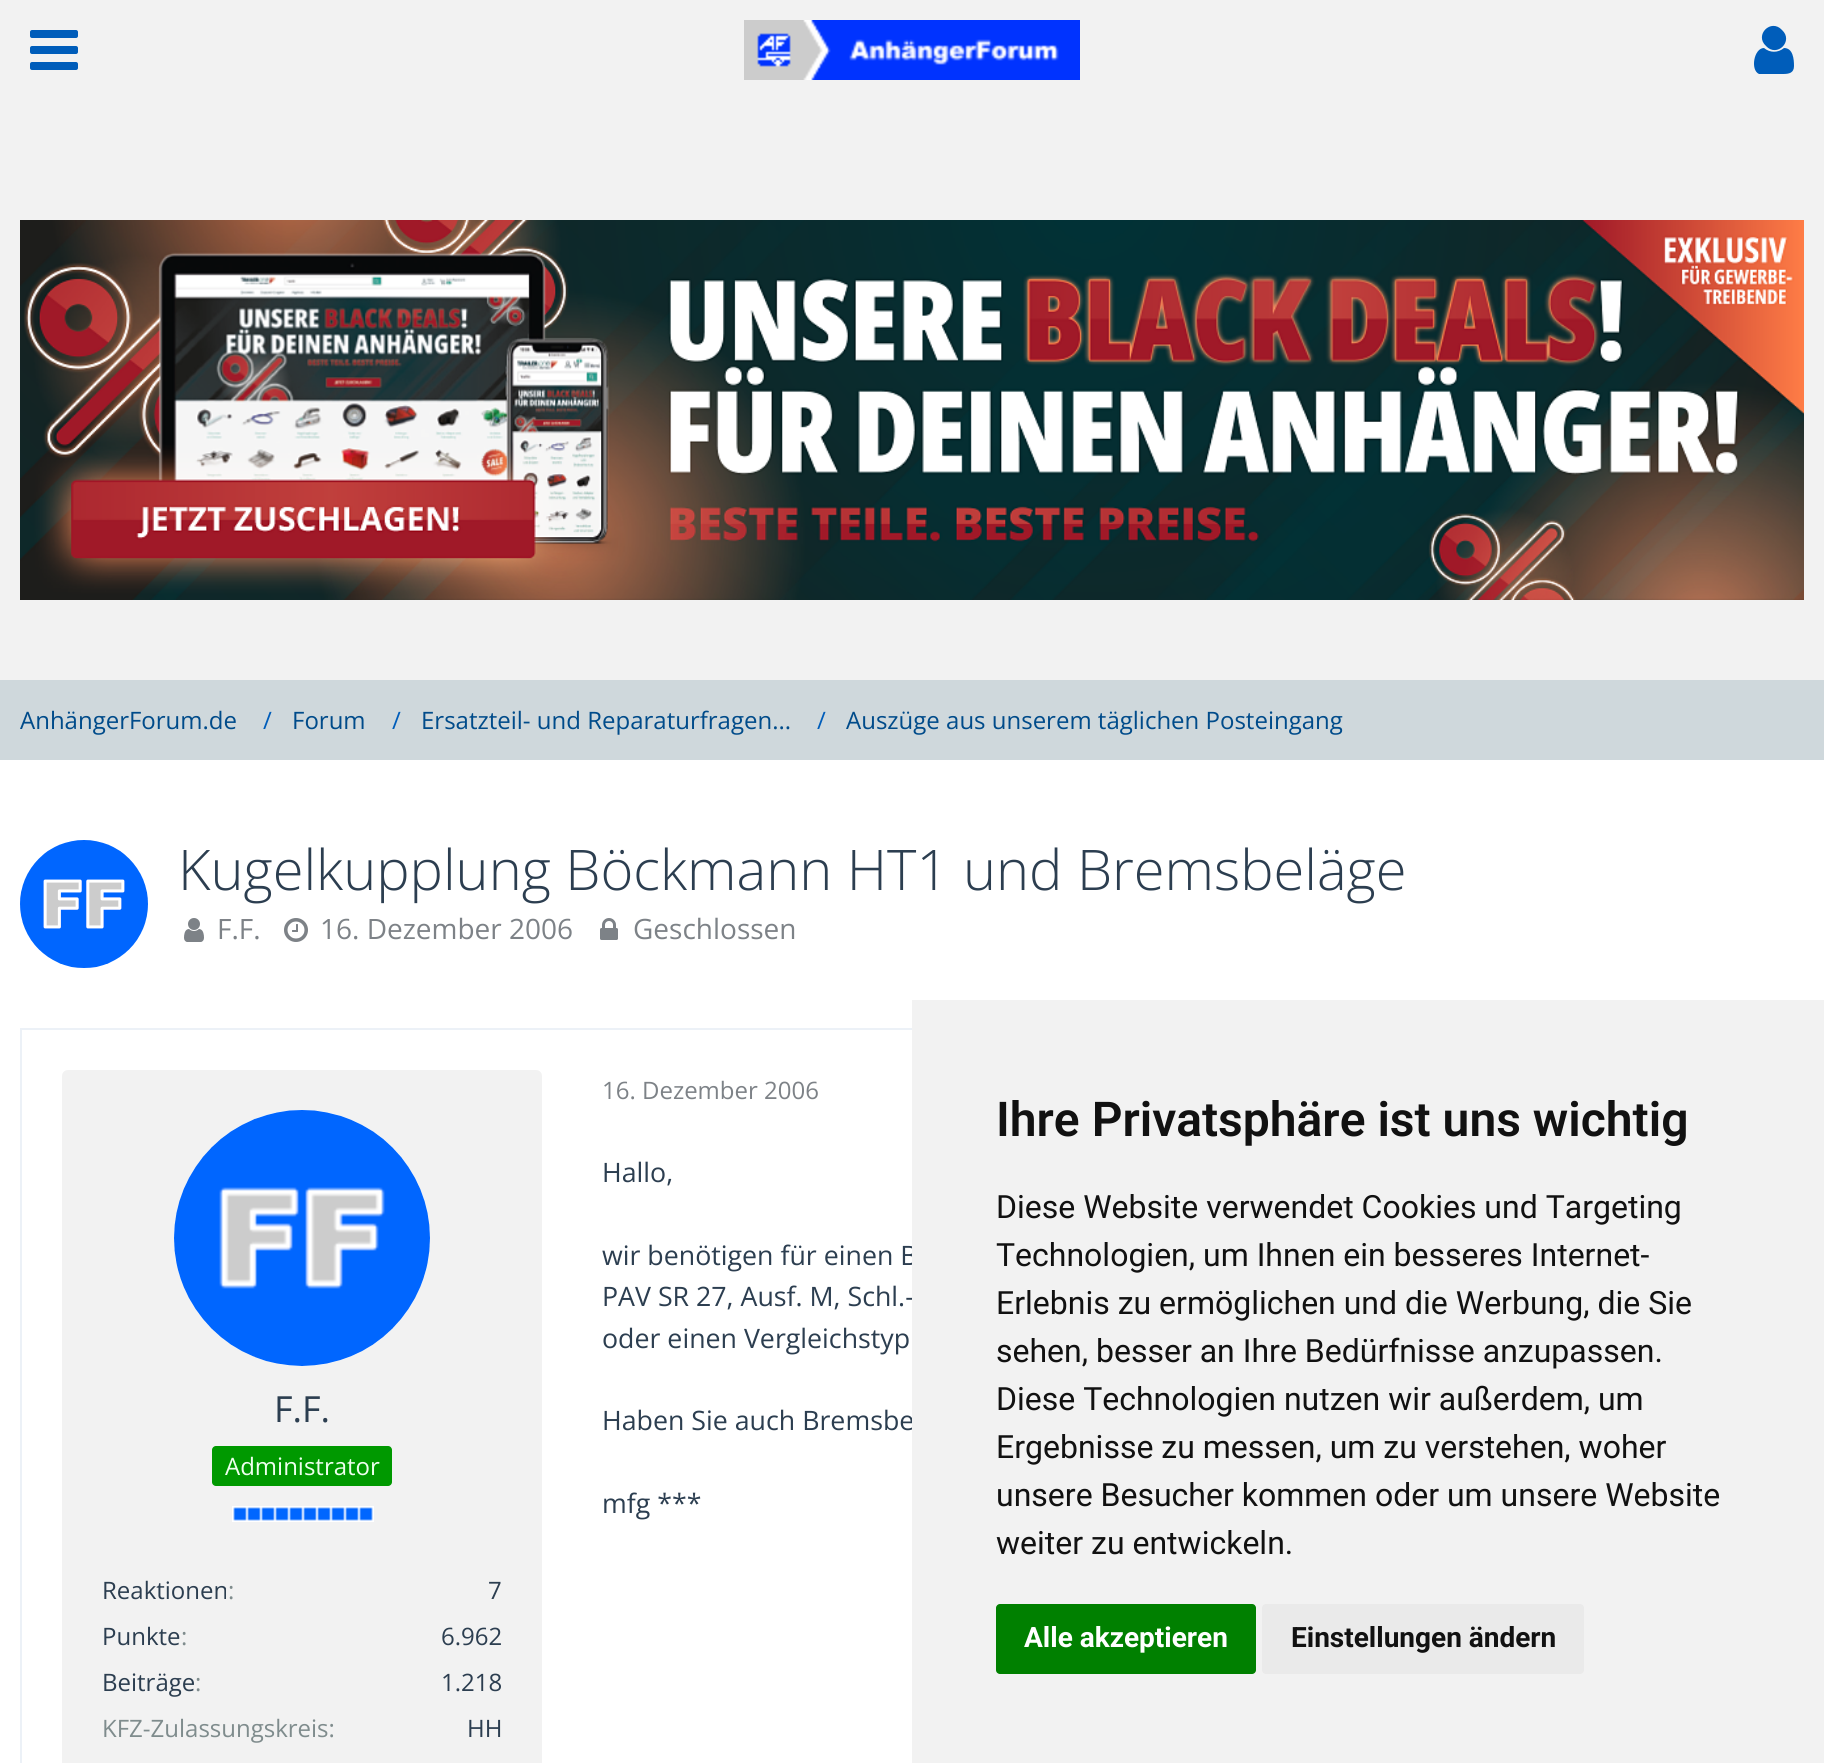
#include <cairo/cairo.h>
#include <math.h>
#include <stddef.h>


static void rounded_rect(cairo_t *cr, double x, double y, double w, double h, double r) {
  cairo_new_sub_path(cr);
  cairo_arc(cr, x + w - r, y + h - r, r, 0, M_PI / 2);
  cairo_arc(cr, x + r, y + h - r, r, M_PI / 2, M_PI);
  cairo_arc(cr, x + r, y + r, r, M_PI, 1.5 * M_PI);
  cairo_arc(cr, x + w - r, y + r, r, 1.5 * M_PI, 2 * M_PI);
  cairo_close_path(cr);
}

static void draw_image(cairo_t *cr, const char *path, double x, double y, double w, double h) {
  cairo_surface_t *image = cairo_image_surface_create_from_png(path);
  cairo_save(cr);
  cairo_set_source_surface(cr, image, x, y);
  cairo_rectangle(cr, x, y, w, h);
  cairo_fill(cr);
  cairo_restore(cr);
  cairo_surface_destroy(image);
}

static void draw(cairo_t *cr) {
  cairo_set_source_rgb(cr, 1, 1, 1);
  cairo_paint(cr);
  cairo_set_source_rgb(cr, 242 / 255.0, 242 / 255.0, 242 / 255.0);
  cairo_rectangle(cr, 0, 0, 1824, 680);
  cairo_fill(cr);
  draw_image(cr, "images/1.png", 744, 20, 336, 60);
  draw_image(cr, "images/2.png", 30, 30, 48, 40);
  cairo_set_source_rgb(cr, 0, 93 / 255.0, 186 / 255.0);
  cairo_new_path(cr);
  cairo_move_to(cr, 1794, 66);
  cairo_curve_to(cr, 1794, 73, 1789, 74, 1783, 74);
  cairo_line_to(cr, 1759, 74);
  cairo_curve_to(cr, 1750, 70, 1754, 48, 1764, 48);
  cairo_curve_to(cr, 1770, 53, 1778, 53, 1784, 48);
  cairo_curve_to(cr, 1793, 48, 1794, 59, 1794, 66);
  cairo_close_path(cr);
  cairo_move_to(cr, 1782, 30);
  cairo_curve_to(cr, 1794, 41, 1777, 58, 1766, 46);
  cairo_curve_to(cr, 1754, 35, 1771, 18, 1782, 30);
  cairo_close_path(cr);
  cairo_fill(cr);
  draw_image(cr, "images/3.png", 20, 220, 1784, 380);
  cairo_set_source_rgb(cr, 207 / 255.0, 216 / 255.0, 220 / 255.0);
  cairo_rectangle(cr, 0, 680, 1824, 80);
  cairo_fill(cr);
  draw_image(cr, "images/4.png", 20, 840, 128, 128);
  draw_image(cr, "images/5.png", 184, 918, 20, 24);
  draw_image(cr, "images/6.png", 284, 918, 24, 24);
  draw_image(cr, "images/7.png", 600, 918, 18, 22);
  cairo_rectangle(cr, 21, 1029, 1782, 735);
  cairo_set_source_rgb(cr, 236 / 255.0, 241 / 255.0, 247 / 255.0);
  cairo_stroke(cr);
  cairo_set_source_rgb(cr, 242 / 255.0, 242 / 255.0, 242 / 255.0);
  rounded_rect(cr, 62, 1070, 480, 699, 6);
  cairo_fill(cr);
  cairo_set_source_rgb(cr, 1, 1, 1);
  cairo_arc(cr, 302, 1238, 128, 0, 2 * M_PI);
  cairo_fill(cr);
  draw_image(cr, "images/8.png", 174, 1110, 256, 256);
  cairo_set_source_rgb(cr, 0, 153 / 255.0, 0);
  rounded_rect(cr, 212, 1446, 180, 40, 4);
  cairo_fill(cr);
  draw_image(cr, "images/9.png", 232, 1506, 142, 16);
  cairo_select_font_face(cr, "Open Sans", CAIRO_FONT_SLANT_NORMAL, CAIRO_FONT_WEIGHT_NORMAL);
  cairo_set_font_size(cr, 24);
  cairo_set_source_rgb(cr, 0, 75 / 255.0, 138 / 255.0);
  cairo_move_to(cr, 20, 729);
  cairo_show_text(cr, "AnhängerForum.de");
  cairo_set_source_rgb(cr, 0, 93 / 255.0, 186 / 255.0);
  cairo_move_to(cr, 263, 729);
  cairo_show_text(cr, "/");
  cairo_set_source_rgb(cr, 0, 75 / 255.0, 138 / 255.0);
  cairo_move_to(cr, 292, 729);
  cairo_show_text(cr, "Forum");
  cairo_set_source_rgb(cr, 0, 93 / 255.0, 186 / 255.0);
  cairo_move_to(cr, 392, 729);
  cairo_show_text(cr, "/");
  cairo_set_source_rgb(cr, 0, 75 / 255.0, 138 / 255.0);
  cairo_move_to(cr, 421, 729);
  cairo_show_text(cr, "Ersatzteil- und Reparaturfragen...");
  cairo_set_source_rgb(cr, 0, 93 / 255.0, 186 / 255.0);
  cairo_move_to(cr, 817, 729);
  cairo_show_text(cr, "/");
  cairo_set_source_rgb(cr, 0, 75 / 255.0, 138 / 255.0);
  cairo_move_to(cr, 846, 729);
  cairo_show_text(cr, "Auszüge aus unserem täglichen Posteingang");
  cairo_select_font_face(cr, "Open Sans Light", CAIRO_FONT_SLANT_NORMAL, CAIRO_FONT_WEIGHT_NORMAL);
  cairo_set_font_size(cr, 56);
  cairo_set_source_rgb(cr, 44 / 255.0, 62 / 255.0, 80 / 255.0);
  cairo_move_to(cr, 178, 890);
  cairo_show_text(cr, "Kugelkupplung Böckmann HT1 und Bremsbeläge");
  cairo_select_font_face(cr, "Open Sans", CAIRO_FONT_SLANT_NORMAL, CAIRO_FONT_WEIGHT_NORMAL);
  cairo_set_font_size(cr, 28);
  cairo_set_source_rgb(cr, 125 / 255.0, 130 / 255.0, 135 / 255.0);
  cairo_move_to(cr, 217, 939);
  cairo_show_text(cr, "F.F.");
  cairo_move_to(cr, 320, 939);
  cairo_show_text(cr, "16. Dezember 2006");
  cairo_move_to(cr, 633, 939);
  cairo_show_text(cr, "Geschlossen");
  cairo_set_font_size(cr, 24);
  cairo_move_to(cr, 602, 1099);
  cairo_show_text(cr, "16. Dezember 2006");
  cairo_set_font_size(cr, 26.75);
  cairo_set_source_rgb(cr, 44 / 255.0, 62 / 255.0, 80 / 255.0);
  cairo_move_to(cr, 602, 1182);
  cairo_show_text(cr, "Hallo,");
  cairo_move_to(cr, 602, 1265);
  cairo_show_text(cr, "wir benötigen für einen B");
  cairo_move_to(cr, 602, 1306);
  cairo_show_text(cr, "PAV SR 27, Ausf. M, Schl.-");
  cairo_move_to(cr, 602, 1348);
  cairo_show_text(cr, "oder einen Vergleichstyp");
  cairo_move_to(cr, 602, 1430);
  cairo_show_text(cr, "Haben Sie auch Bremsbe");
  cairo_move_to(cr, 602, 1513);
  cairo_show_text(cr, "mfg ***");
  cairo_set_font_size(cr, 36);
  cairo_move_to(cr, 274, 1422);
  cairo_show_text(cr, "F.F.");
  cairo_set_font_size(cr, 24);
  cairo_set_source_rgb(cr, 238 / 255.0, 1, 238 / 255.0);
  cairo_move_to(cr, 225, 1475);
  cairo_show_text(cr, "Administrator");
  cairo_set_source_rgb(cr, 44 / 255.0, 62 / 255.0, 80 / 255.0);
  cairo_move_to(cr, 102, 1599);
  cairo_show_text(cr, "Reaktionen");
  cairo_set_source_rgb(cr, 127 / 255.0, 140 / 255.0, 141 / 255.0);
  cairo_move_to(cr, 228, 1599);
  cairo_show_text(cr, ":");
  cairo_set_source_rgb(cr, 44 / 255.0, 62 / 255.0, 80 / 255.0);
  cairo_move_to(cr, 488, 1599);
  cairo_show_text(cr, "7");
  cairo_move_to(cr, 102, 1645);
  cairo_show_text(cr, "Punkte");
  cairo_set_source_rgb(cr, 127 / 255.0, 140 / 255.0, 141 / 255.0);
  cairo_move_to(cr, 181, 1645);
  cairo_show_text(cr, ":");
  cairo_set_source_rgb(cr, 44 / 255.0, 62 / 255.0, 80 / 255.0);
  cairo_move_to(cr, 441, 1645);
  cairo_show_text(cr, "6.962");
  cairo_move_to(cr, 102, 1691);
  cairo_show_text(cr, "Beiträge");
  cairo_set_source_rgb(cr, 127 / 255.0, 140 / 255.0, 141 / 255.0);
  cairo_move_to(cr, 195, 1691);
  cairo_show_text(cr, ":");
  cairo_set_source_rgb(cr, 44 / 255.0, 62 / 255.0, 80 / 255.0);
  cairo_move_to(cr, 441, 1691);
  cairo_show_text(cr, "1.218");
  cairo_set_source_rgb(cr, 127 / 255.0, 140 / 255.0, 141 / 255.0);
  cairo_move_to(cr, 102, 1737);
  cairo_show_text(cr, "KFZ-Zulassungskreis:");
  cairo_set_source_rgb(cr, 44 / 255.0, 62 / 255.0, 80 / 255.0);
  cairo_move_to(cr, 467, 1737);
  cairo_show_text(cr, "HH");
  cairo_set_source_rgb(cr, 242 / 255.0, 242 / 255.0, 242 / 255.0);
  cairo_rectangle(cr, 912, 1000, 912, 763);
  cairo_fill(cr);
  cairo_select_font_face(cr, "Roboto SemiBold", CAIRO_FONT_SLANT_NORMAL, CAIRO_FONT_WEIGHT_NORMAL);
  cairo_set_font_size(cr, 48);
  cairo_set_source_rgb(cr, 17 / 255.0, 17 / 255.0, 17 / 255.0);
  cairo_move_to(cr, 996, 1136);
  cairo_show_text(cr, "Ihre Privatsphäre ist uns wichtig");
  cairo_select_font_face(cr, "Roboto", CAIRO_FONT_SLANT_NORMAL, CAIRO_FONT_WEIGHT_NORMAL);
  cairo_set_font_size(cr, 32);
  cairo_move_to(cr, 996, 1218);
  cairo_show_text(cr, "Diese Website verwendet Cookies und Targeting");
  cairo_move_to(cr, 996, 1266);
  cairo_show_text(cr, "Technologien, um Ihnen ein besseres Internet-");
  cairo_move_to(cr, 996, 1314);
  cairo_show_text(cr, "Erlebnis zu ermöglichen und die Werbung, die Sie");
  cairo_move_to(cr, 996, 1362);
  cairo_show_text(cr, "sehen, besser an Ihre Bedürfnisse anzupassen.");
  cairo_move_to(cr, 996, 1410);
  cairo_show_text(cr, "Diese Technologien nutzen wir außerdem, um");
  cairo_move_to(cr, 996, 1458);
  cairo_show_text(cr, "Ergebnisse zu messen, um zu verstehen, woher");
  cairo_move_to(cr, 996, 1506);
  cairo_show_text(cr, "unsere Besucher kommen oder um unsere Website");
  cairo_move_to(cr, 996, 1554);
  cairo_show_text(cr, "weiter zu entwickeln.");
  cairo_set_source_rgb(cr, 0, 128 / 255.0, 0);
  rounded_rect(cr, 996, 1604, 260, 70, 4);
  cairo_fill(cr);
  cairo_select_font_face(cr, "Roboto", CAIRO_FONT_SLANT_NORMAL, CAIRO_FONT_WEIGHT_BOLD);
  cairo_set_font_size(cr, 28);
  cairo_set_source_rgb(cr, 1, 1, 1);
  cairo_move_to(cr, 1024, 1647);
  cairo_show_text(cr, "Alle akzeptieren");
  cairo_set_source_rgb(cr, 234 / 255.0, 234 / 255.0, 234 / 255.0);
  rounded_rect(cr, 1262, 1604, 322, 70, 4);
  cairo_fill(cr);
  cairo_set_source_rgb(cr, 17 / 255.0, 17 / 255.0, 17 / 255.0);
  cairo_move_to(cr, 1291, 1647);
  cairo_show_text(cr, "Einstellungen ändern");
}

int main(void) {
  cairo_surface_t *surface = cairo_image_surface_create(CAIRO_FORMAT_RGB24, 1824, 1763);
  cairo_t *cr = cairo_create(surface);
  cairo_font_options_t *options = cairo_font_options_create();
  cairo_font_options_set_hint_metrics(options, CAIRO_HINT_METRICS_OFF);
  cairo_font_options_set_hint_style(options, CAIRO_HINT_STYLE_NONE);
  cairo_set_font_options(cr, options);
  cairo_set_miter_limit(cr, 4);
  draw(cr);
  cairo_surface_write_to_png(surface, "out.png");
  cairo_font_options_destroy(options);
  cairo_destroy(cr);
  cairo_surface_destroy(surface);
  return 0;
}
